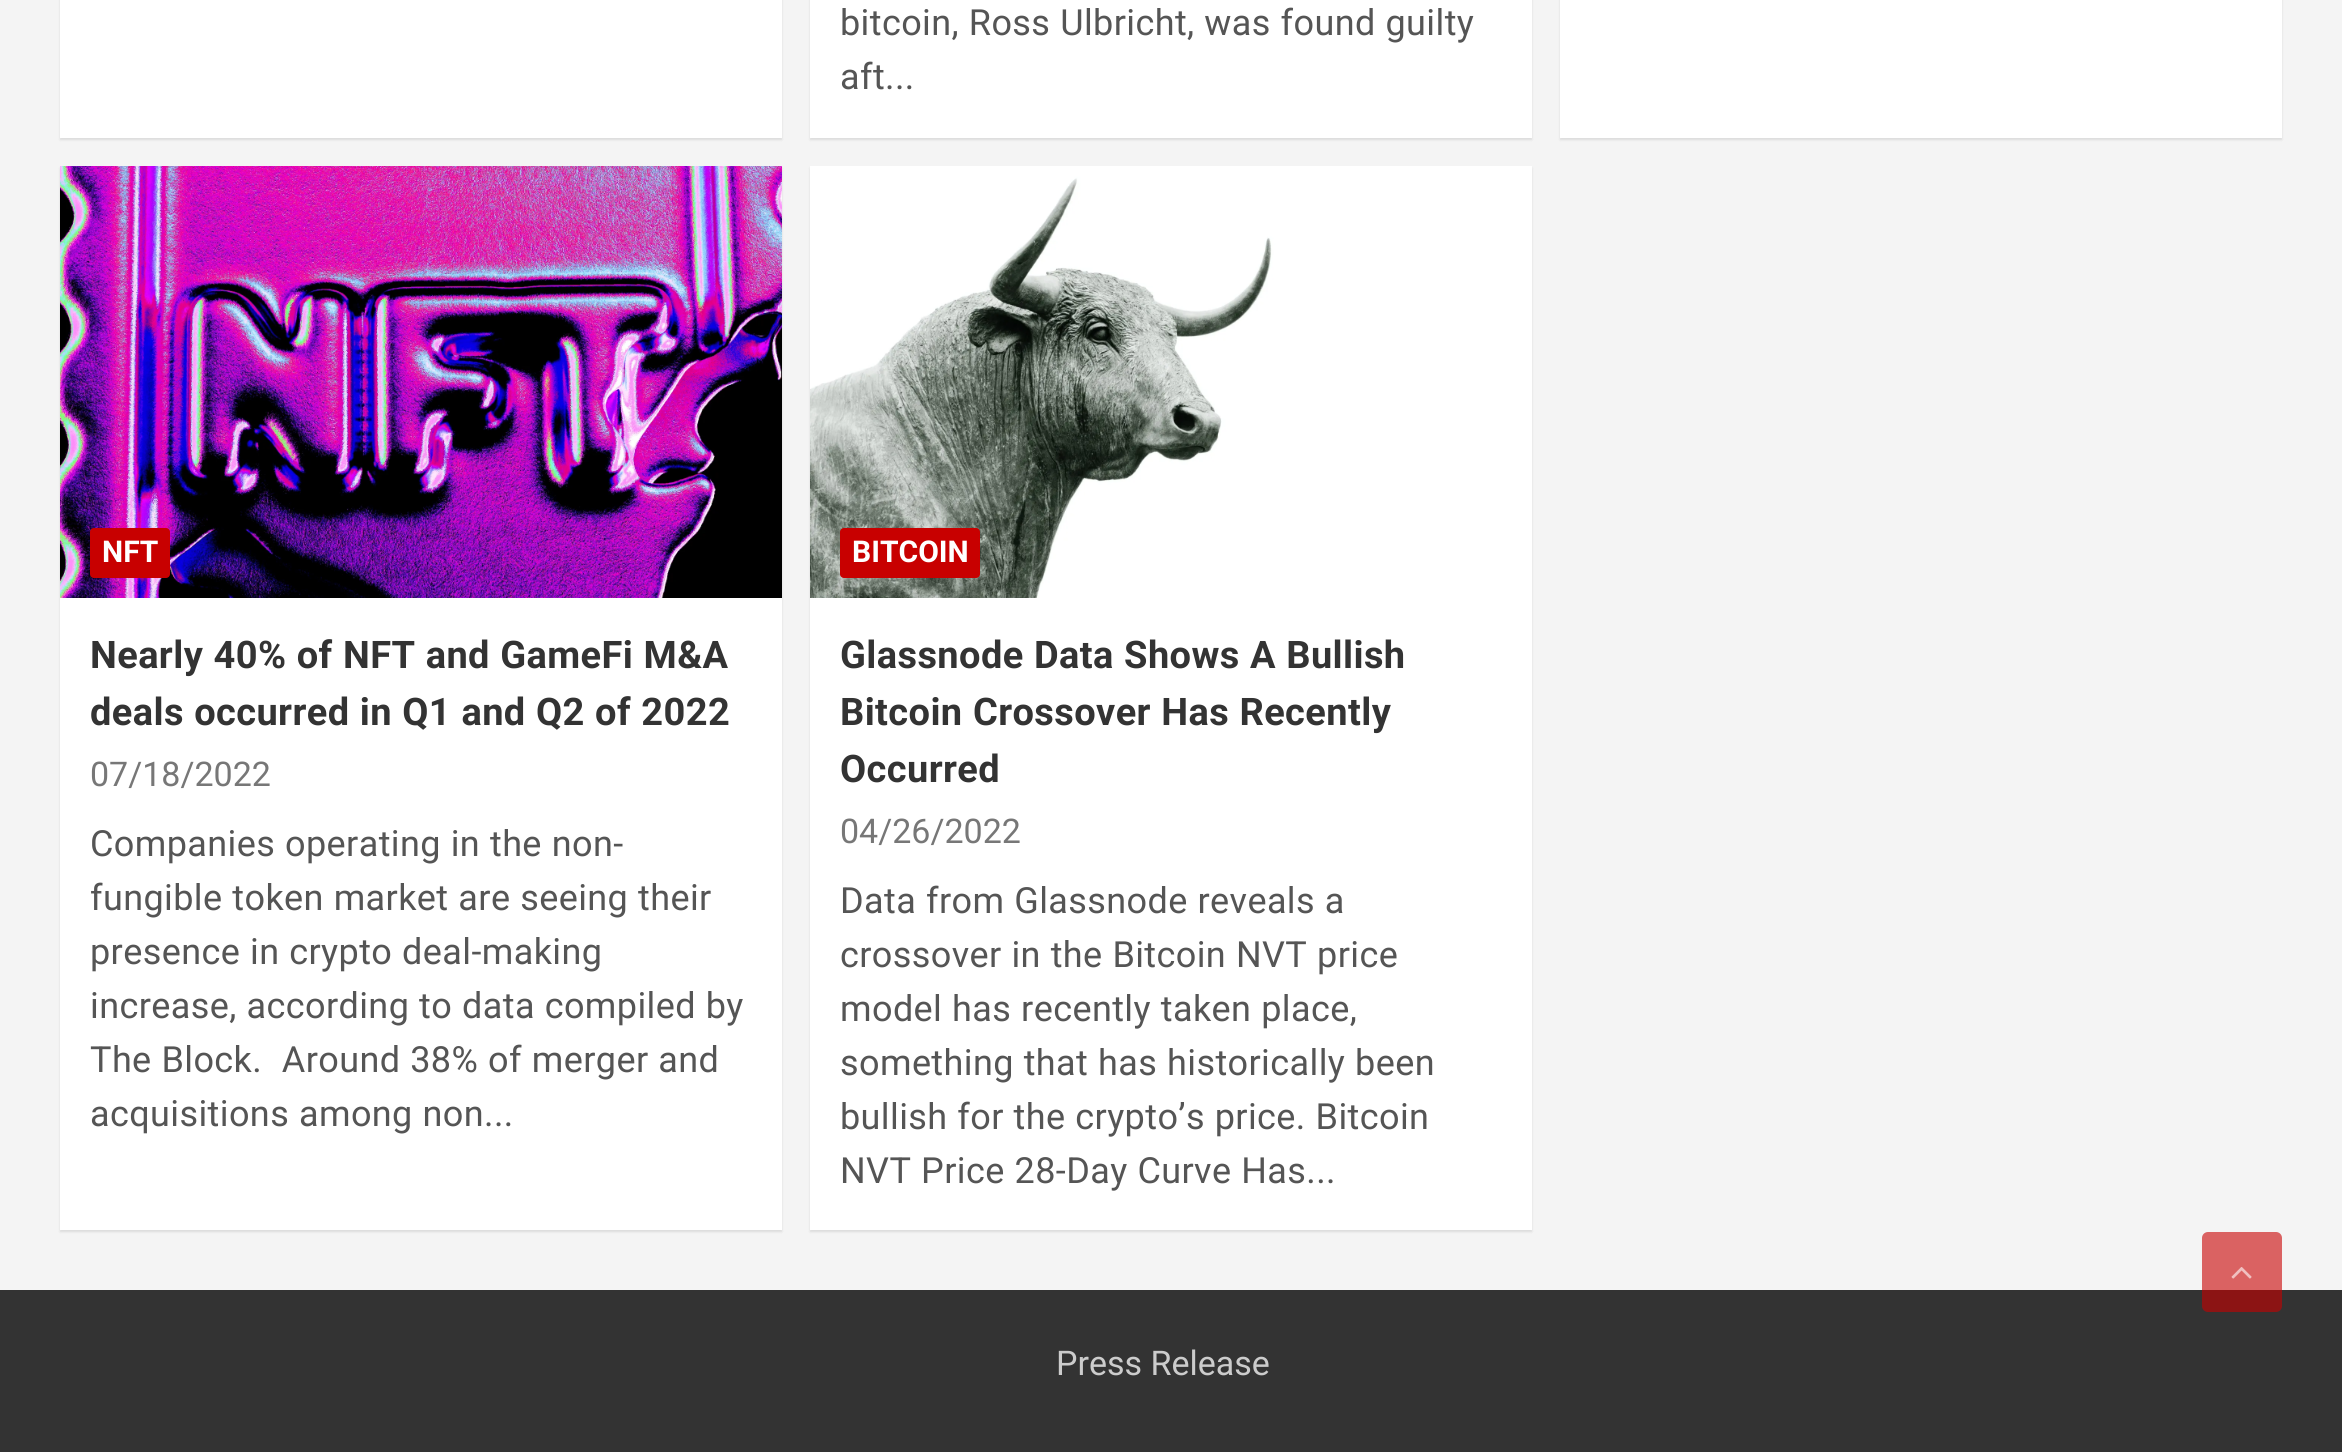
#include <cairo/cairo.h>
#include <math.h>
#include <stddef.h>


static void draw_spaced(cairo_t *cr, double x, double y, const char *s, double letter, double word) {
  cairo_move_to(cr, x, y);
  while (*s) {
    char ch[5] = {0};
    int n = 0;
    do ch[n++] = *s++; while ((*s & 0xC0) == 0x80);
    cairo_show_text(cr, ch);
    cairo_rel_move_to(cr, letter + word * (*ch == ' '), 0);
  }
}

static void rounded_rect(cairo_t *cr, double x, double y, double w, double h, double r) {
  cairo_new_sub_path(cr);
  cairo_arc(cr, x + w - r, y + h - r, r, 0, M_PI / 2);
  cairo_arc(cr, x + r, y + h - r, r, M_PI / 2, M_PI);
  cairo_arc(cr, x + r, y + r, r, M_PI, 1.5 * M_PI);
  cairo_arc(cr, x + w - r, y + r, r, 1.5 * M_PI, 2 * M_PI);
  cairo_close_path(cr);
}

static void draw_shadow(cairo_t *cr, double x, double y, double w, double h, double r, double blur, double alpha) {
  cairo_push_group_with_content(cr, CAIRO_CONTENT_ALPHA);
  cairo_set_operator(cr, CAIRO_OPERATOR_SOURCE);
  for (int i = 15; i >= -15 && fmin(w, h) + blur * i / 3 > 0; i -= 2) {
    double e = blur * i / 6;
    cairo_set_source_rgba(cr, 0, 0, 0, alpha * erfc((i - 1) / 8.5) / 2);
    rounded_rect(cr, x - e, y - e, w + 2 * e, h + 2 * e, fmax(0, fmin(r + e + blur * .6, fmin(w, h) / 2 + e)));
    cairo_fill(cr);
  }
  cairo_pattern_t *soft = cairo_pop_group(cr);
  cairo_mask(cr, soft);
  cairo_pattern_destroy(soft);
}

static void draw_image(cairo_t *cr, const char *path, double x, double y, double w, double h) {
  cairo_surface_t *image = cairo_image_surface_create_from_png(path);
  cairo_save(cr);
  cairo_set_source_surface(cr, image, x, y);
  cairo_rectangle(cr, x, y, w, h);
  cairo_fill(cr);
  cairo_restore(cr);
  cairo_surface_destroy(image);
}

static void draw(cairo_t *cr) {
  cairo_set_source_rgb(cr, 244 / 255.0, 244 / 255.0, 244 / 255.0);
  cairo_paint(cr);
  cairo_set_source_rgb(cr, 0, 0, 0);
  draw_shadow(cr, 60, -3, 722, 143, 0, 1, 0.1);
  cairo_set_source_rgb(cr, 1, 1, 1);
  cairo_rectangle(cr, 60, 0, 722, 138);
  cairo_fill(cr);
  cairo_set_source_rgb(cr, 0, 0, 0);
  draw_shadow(cr, 810, -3, 722, 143, 0, 1, 0.1);
  cairo_set_source_rgb(cr, 1, 1, 1);
  cairo_rectangle(cr, 810, 0, 722, 138);
  cairo_fill(cr);
  cairo_set_source_rgb(cr, 0, 0, 0);
  draw_shadow(cr, 1560, -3, 722, 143, 0, 1, 0.1);
  cairo_set_source_rgb(cr, 1, 1, 1);
  cairo_rectangle(cr, 1560, 0, 722, 138);
  cairo_fill(cr);
  cairo_set_source_rgb(cr, 0, 0, 0);
  draw_shadow(cr, 60, 168, 722, 1064, 0, 1, 0.1);
  cairo_set_source_rgb(cr, 1, 1, 1);
  cairo_rectangle(cr, 60, 598, 722, 632);
  cairo_fill(cr);
  draw_image(cr, "images/1.png", 60, 166, 722, 432);
  cairo_set_source_rgb(cr, 200 / 255.0, 0, 0);
  rounded_rect(cr, 90, 528, 80, 50, 4);
  cairo_fill(cr);
  cairo_set_source_rgb(cr, 0, 0, 0);
  draw_shadow(cr, 810, 168, 722, 1064, 0, 1, 0.1);
  cairo_set_source_rgb(cr, 1, 1, 1);
  cairo_rectangle(cr, 810, 598, 722, 632);
  cairo_fill(cr);
  draw_image(cr, "images/2.png", 810, 166, 722, 432);
  cairo_set_source_rgb(cr, 200 / 255.0, 0, 0);
  rounded_rect(cr, 840, 528, 140, 50, 4);
  cairo_fill(cr);
  cairo_set_source_rgb(cr, 51 / 255.0, 51 / 255.0, 51 / 255.0);
  cairo_rectangle(cr, 0, 1290, 2342, 162);
  cairo_fill(cr);
  cairo_set_source_rgba(cr, 200 / 255.0, 0, 0, 0.6);
  rounded_rect(cr, 2202, 1232, 80, 80, 6);
  cairo_fill(cr);
  draw_image(cr, "images/3.png", 2231, 1267, 21, 12);
  cairo_select_font_face(cr, "Roboto", CAIRO_FONT_SLANT_NORMAL, CAIRO_FONT_WEIGHT_NORMAL);
  cairo_set_font_size(cr, 36);
  cairo_set_source_rgb(cr, 85 / 255.0, 85 / 255.0, 85 / 255.0);
  draw_spaced(cr, 840, 35, "bitcoin, Ross Ulbricht, was found guilty", 0.4, 0.5);
  draw_spaced(cr, 840, 89, "aft...", 0.4, 0);
  cairo_select_font_face(cr, "Roboto", CAIRO_FONT_SLANT_NORMAL, CAIRO_FONT_WEIGHT_BOLD);
  cairo_set_font_size(cr, 30);
  cairo_set_source_rgb(cr, 1, 1, 1);
  cairo_move_to(cr, 102, 562);
  cairo_show_text(cr, "NFT");
  cairo_set_font_size(cr, 38);
  cairo_set_source_rgb(cr, 51 / 255.0, 51 / 255.0, 51 / 255.0);
  draw_spaced(cr, 90, 668, "Nearly 40% of NFT and GameFi M&A", 0.4, 0.5);
  draw_spaced(cr, 90, 725, "deals occurred in Q1 and Q2 of 2022", 0.4, 0.5);
  cairo_select_font_face(cr, "Roboto", CAIRO_FONT_SLANT_NORMAL, CAIRO_FONT_WEIGHT_NORMAL);
  cairo_set_font_size(cr, 34);
  cairo_set_source_rgb(cr, 119 / 255.0, 119 / 255.0, 119 / 255.0);
  cairo_move_to(cr, 90, 786);
  cairo_show_text(cr, "07/18/2022");
  cairo_set_font_size(cr, 36);
  cairo_set_source_rgb(cr, 85 / 255.0, 85 / 255.0, 85 / 255.0);
  draw_spaced(cr, 90, 856, "Companies operating in the non-", 0.4, 0.5);
  draw_spaced(cr, 90, 910, "fungible token market are seeing their", 0.4, 0.5);
  draw_spaced(cr, 90, 964, "presence in crypto deal-making", 0.4, 0.5);
  draw_spaced(cr, 90, 1018, "increase, according to data compiled by", 0.4, 0.5);
  draw_spaced(cr, 90, 1072, "The Block.  Around 38% of merger and", 0.4, 0.5);
  draw_spaced(cr, 90, 1126, "acquisitions among non...", 0.4, 0.5);
  cairo_select_font_face(cr, "Roboto", CAIRO_FONT_SLANT_NORMAL, CAIRO_FONT_WEIGHT_BOLD);
  cairo_set_font_size(cr, 30);
  cairo_set_source_rgb(cr, 1, 1, 1);
  cairo_move_to(cr, 852, 562);
  cairo_show_text(cr, "BITCOIN");
  cairo_set_font_size(cr, 38);
  cairo_set_source_rgb(cr, 51 / 255.0, 51 / 255.0, 51 / 255.0);
  draw_spaced(cr, 840, 668, "Glassnode Data Shows A Bullish", 0.4, 0.5);
  draw_spaced(cr, 840, 725, "Bitcoin Crossover Has Recently", 0.4, 0.5);
  draw_spaced(cr, 840, 782, "Occurred", 0.4, 0);
  cairo_select_font_face(cr, "Roboto", CAIRO_FONT_SLANT_NORMAL, CAIRO_FONT_WEIGHT_NORMAL);
  cairo_set_font_size(cr, 34);
  cairo_set_source_rgb(cr, 119 / 255.0, 119 / 255.0, 119 / 255.0);
  cairo_move_to(cr, 840, 843);
  cairo_show_text(cr, "04/26/2022");
  cairo_set_font_size(cr, 36);
  cairo_set_source_rgb(cr, 85 / 255.0, 85 / 255.0, 85 / 255.0);
  draw_spaced(cr, 840, 913, "Data from Glassnode reveals a", 0.4, 0.5);
  draw_spaced(cr, 840, 967, "crossover in the Bitcoin NVT price", 0.4, 0.5);
  draw_spaced(cr, 840, 1021, "model has recently taken place,", 0.4, 0.5);
  draw_spaced(cr, 840, 1075, "something that has historically been", 0.4, 0.5);
  draw_spaced(cr, 840, 1129, "bullish for the crypto’s price. Bitcoin", 0.4, 0.5);
  draw_spaced(cr, 840, 1183, "NVT Price 28-Day Curve Has...", 0.4, 0.5);
  cairo_set_font_size(cr, 34);
  cairo_set_source_rgb(cr, 204 / 255.0, 204 / 255.0, 204 / 255.0);
  cairo_move_to(cr, 1056, 1375);
  cairo_show_text(cr, "Press Release");
}

int main(void) {
  cairo_surface_t *surface = cairo_image_surface_create(CAIRO_FORMAT_RGB24, 2342, 1452);
  cairo_t *cr = cairo_create(surface);
  cairo_font_options_t *options = cairo_font_options_create();
  cairo_font_options_set_hint_metrics(options, CAIRO_HINT_METRICS_OFF);
  cairo_font_options_set_hint_style(options, CAIRO_HINT_STYLE_NONE);
  cairo_set_font_options(cr, options);
  cairo_set_miter_limit(cr, 4);
  draw(cr);
  cairo_surface_write_to_png(surface, "out.png");
  cairo_font_options_destroy(options);
  cairo_destroy(cr);
  cairo_surface_destroy(surface);
  return 0;
}
